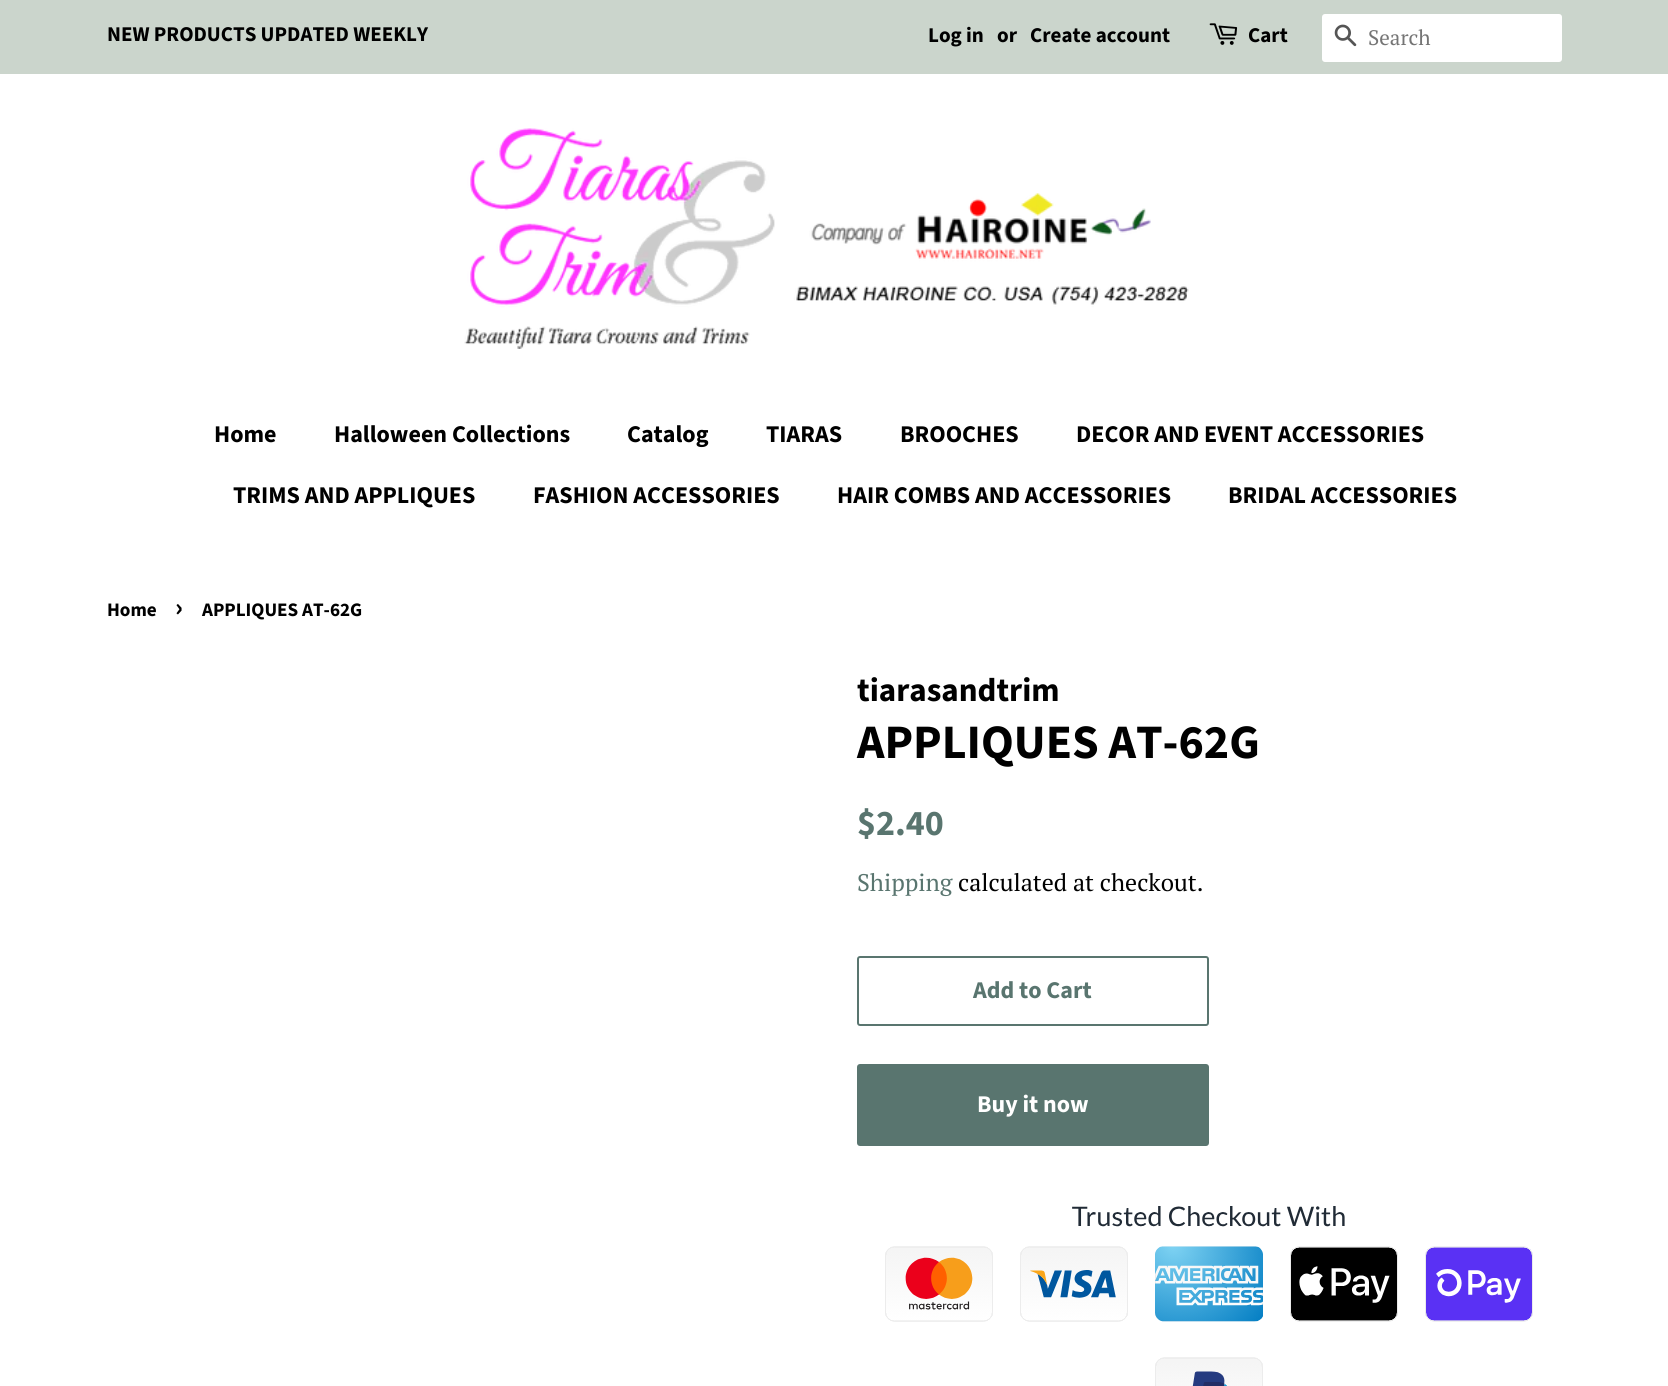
#include <cairo/cairo.h>
#include <math.h>
#include <stddef.h>


static void rounded_rect(cairo_t *cr, double x, double y, double w, double h, double r) {
  cairo_new_sub_path(cr);
  cairo_arc(cr, x + w - r, y + h - r, r, 0, M_PI / 2);
  cairo_arc(cr, x + r, y + h - r, r, M_PI / 2, M_PI);
  cairo_arc(cr, x + r, y + r, r, M_PI, 1.5 * M_PI);
  cairo_arc(cr, x + w - r, y + r, r, 1.5 * M_PI, 2 * M_PI);
  cairo_close_path(cr);
}

static void draw_image(cairo_t *cr, const char *path, double x, double y, double w, double h) {
  cairo_surface_t *image = cairo_image_surface_create_from_png(path);
  cairo_save(cr);
  cairo_set_source_surface(cr, image, x, y);
  cairo_rectangle(cr, x, y, w, h);
  cairo_fill(cr);
  cairo_restore(cr);
  cairo_surface_destroy(image);
}

static void draw(cairo_t *cr) {
  cairo_set_source_rgb(cr, 1, 1, 1);
  cairo_paint(cr);
  cairo_set_source_rgb(cr, 203 / 255.0, 213 / 255.0, 204 / 255.0);
  cairo_rectangle(cr, 0, 0, 1668, 74);
  cairo_fill(cr);
  draw_image(cr, "images/1.png", 1209, 23, 29, 22);
  cairo_set_source_rgb(cr, 1, 1, 1);
  rounded_rect(cr, 1322, 14, 240, 48, 3);
  cairo_fill(cr);
  draw_image(cr, "images/2.png", 1334, 24, 23, 23);
  draw_image(cr, "images/3.png", 464, 128, 725, 221);
  rounded_rect(cr, 858, 957, 350, 68, 2);
  cairo_set_source_rgb(cr, 89 / 255.0, 117 / 255.0, 111 / 255.0);
  cairo_stroke(cr);
  rounded_rect(cr, 857, 1064, 352, 82, 3);
  cairo_fill(cr);
  draw_image(cr, "images/4.png", 885, 1206, 648, 180);
  cairo_select_font_face(cr, "Source Sans Pro", CAIRO_FONT_SLANT_NORMAL, CAIRO_FONT_WEIGHT_BOLD);
  cairo_set_font_size(cr, 21);
  cairo_set_source_rgb(cr, 0, 0, 0);
  cairo_move_to(cr, 107, 41);
  cairo_show_text(cr, "NEW PRODUCTS UPDATED WEEKLY");
  cairo_move_to(cr, 928, 42);
  cairo_show_text(cr, "Log in");
  cairo_move_to(cr, 997, 42);
  cairo_show_text(cr, "or");
  cairo_move_to(cr, 1030, 42);
  cairo_show_text(cr, "Create account");
  cairo_move_to(cr, 1248, 42);
  cairo_show_text(cr, "Cart");
  cairo_select_font_face(cr, "PT Serif", CAIRO_FONT_SLANT_NORMAL, CAIRO_FONT_WEIGHT_NORMAL);
  cairo_set_source_rgb(cr, 117 / 255.0, 117 / 255.0, 117 / 255.0);
  cairo_move_to(cr, 1368, 45);
  cairo_show_text(cr, "Search");
  cairo_select_font_face(cr, "Source Sans Pro", CAIRO_FONT_SLANT_NORMAL, CAIRO_FONT_WEIGHT_BOLD);
  cairo_set_font_size(cr, 24);
  cairo_set_source_rgb(cr, 0, 0, 0);
  cairo_move_to(cr, 214, 442);
  cairo_show_text(cr, "Home");
  cairo_move_to(cr, 334, 442);
  cairo_show_text(cr, "Halloween Collections");
  cairo_move_to(cr, 627, 442);
  cairo_show_text(cr, "Catalog");
  cairo_move_to(cr, 766, 442);
  cairo_show_text(cr, "TIARAS");
  cairo_move_to(cr, 900, 442);
  cairo_show_text(cr, "BROOCHES");
  cairo_move_to(cr, 1076, 442);
  cairo_show_text(cr, "DECOR AND EVENT ACCESSORIES");
  cairo_move_to(cr, 233, 503);
  cairo_show_text(cr, "TRIMS AND APPLIQUES");
  cairo_move_to(cr, 533, 503);
  cairo_show_text(cr, "FASHION ACCESSORIES");
  cairo_move_to(cr, 837, 503);
  cairo_show_text(cr, "HAIR COMBS AND ACCESSORIES");
  cairo_move_to(cr, 1228, 503);
  cairo_show_text(cr, "BRIDAL ACCESSORIES");
  cairo_set_font_size(cr, 19.1);
  cairo_move_to(cr, 107, 616);
  cairo_show_text(cr, "Home");
  cairo_set_font_size(cr, 27);
  cairo_move_to(cr, 175, 616);
  cairo_show_text(cr, "›");
  cairo_set_font_size(cr, 19.1);
  cairo_move_to(cr, 202, 616);
  cairo_show_text(cr, "APPLIQUES AT-62G");
  cairo_set_font_size(cr, 33);
  cairo_move_to(cr, 857, 701);
  cairo_show_text(cr, "tiarasandtrim");
  cairo_set_font_size(cr, 48);
  cairo_move_to(cr, 857, 758);
  cairo_show_text(cr, "APPLIQUES AT-62G");
  cairo_set_font_size(cr, 36);
  cairo_set_source_rgb(cr, 89 / 255.0, 117 / 255.0, 111 / 255.0);
  cairo_move_to(cr, 857, 835);
  cairo_show_text(cr, "$2.40");
  cairo_select_font_face(cr, "PT Serif", CAIRO_FONT_SLANT_NORMAL, CAIRO_FONT_WEIGHT_NORMAL);
  cairo_set_font_size(cr, 24);
  cairo_move_to(cr, 857, 891);
  cairo_show_text(cr, "Shipping");
  cairo_set_source_rgb(cr, 0, 0, 0);
  cairo_move_to(cr, 958, 891);
  cairo_show_text(cr, "calculated at checkout.");
  cairo_select_font_face(cr, "Source Sans Pro", CAIRO_FONT_SLANT_NORMAL, CAIRO_FONT_WEIGHT_BOLD);
  cairo_set_source_rgb(cr, 89 / 255.0, 117 / 255.0, 111 / 255.0);
  cairo_move_to(cr, 973, 998);
  cairo_show_text(cr, "Add to Cart");
  cairo_set_source_rgb(cr, 1, 1, 1);
  cairo_move_to(cr, 977, 1112);
  cairo_show_text(cr, "Buy it now");
}

int main(void) {
  cairo_surface_t *surface = cairo_image_surface_create(CAIRO_FORMAT_RGB24, 1668, 1386);
  cairo_t *cr = cairo_create(surface);
  cairo_font_options_t *options = cairo_font_options_create();
  cairo_font_options_set_hint_metrics(options, CAIRO_HINT_METRICS_OFF);
  cairo_font_options_set_hint_style(options, CAIRO_HINT_STYLE_NONE);
  cairo_set_font_options(cr, options);
  cairo_set_miter_limit(cr, 4);
  draw(cr);
  cairo_surface_write_to_png(surface, "out.png");
  cairo_font_options_destroy(options);
  cairo_destroy(cr);
  cairo_surface_destroy(surface);
  return 0;
}
